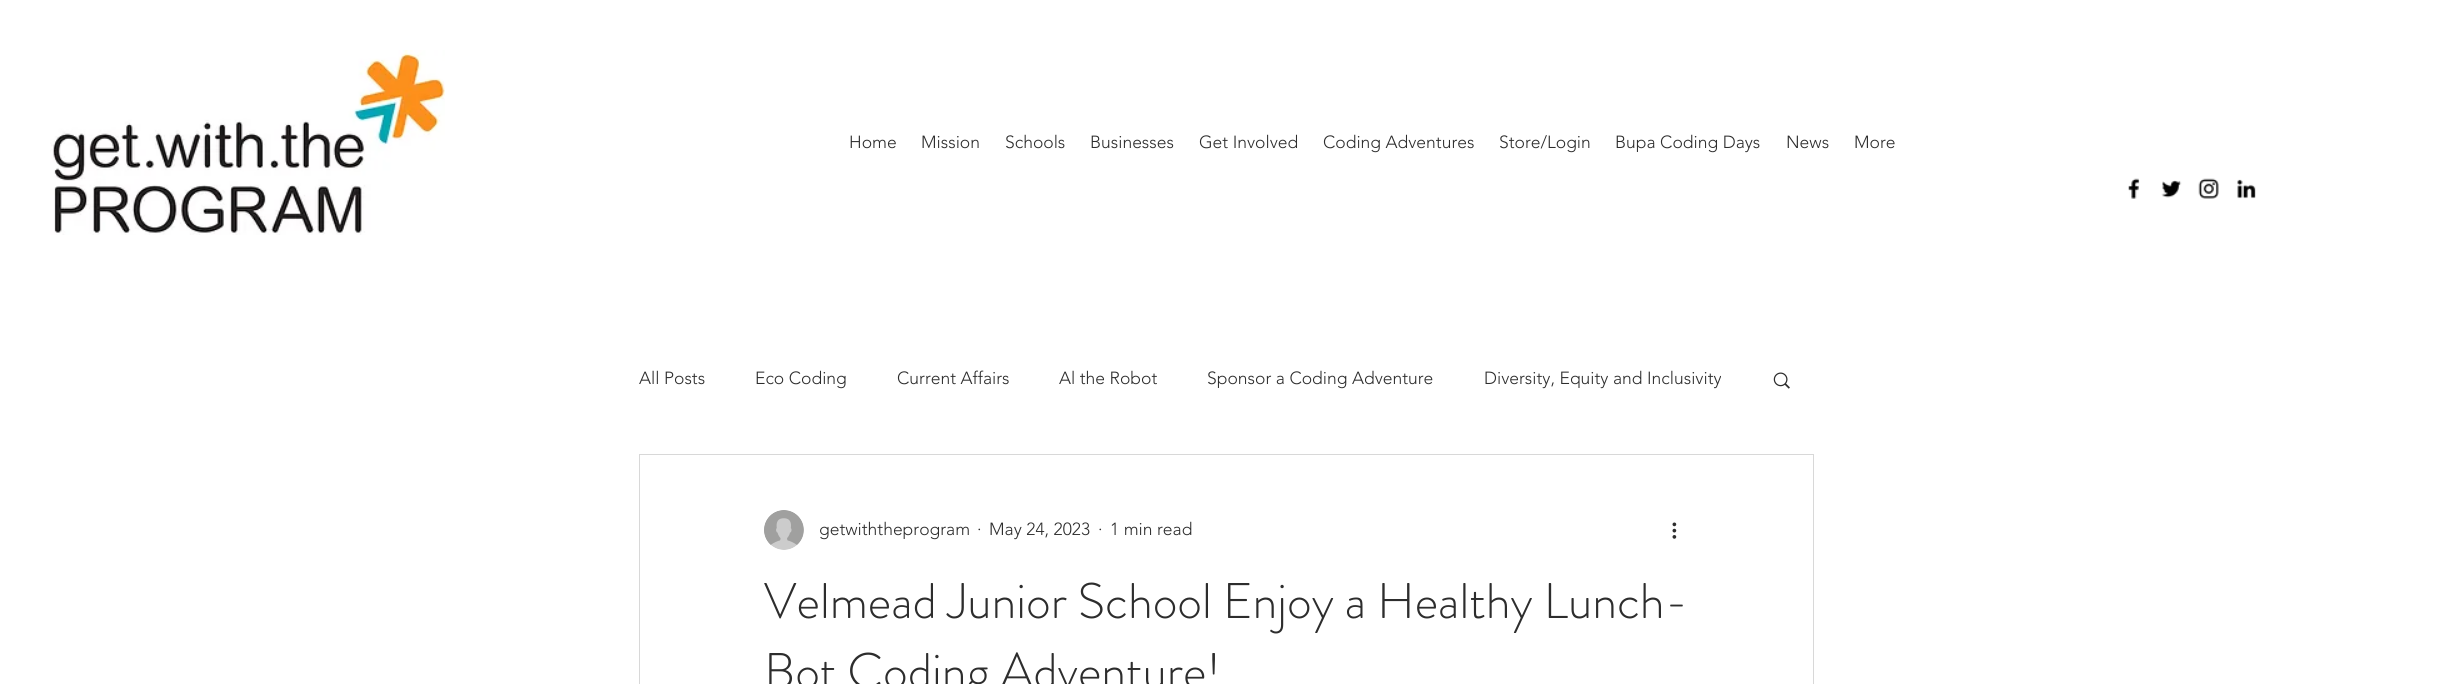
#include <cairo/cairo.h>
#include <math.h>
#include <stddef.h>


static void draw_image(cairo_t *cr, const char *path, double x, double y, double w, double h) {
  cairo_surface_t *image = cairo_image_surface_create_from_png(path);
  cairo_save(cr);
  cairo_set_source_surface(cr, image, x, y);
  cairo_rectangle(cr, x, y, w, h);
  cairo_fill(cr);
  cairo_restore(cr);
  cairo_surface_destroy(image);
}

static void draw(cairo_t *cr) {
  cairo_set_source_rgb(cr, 1, 1, 1);
  cairo_paint(cr);
  draw_image(cr, "images/1.png", 50, 50, 395, 185);
  draw_image(cr, "images/2.png", 2128, 178, 12, 21);
  draw_image(cr, "images/3.png", 2161, 180, 21, 18);
  draw_image(cr, "images/4.png", 2198, 178, 21, 21);
  draw_image(cr, "images/5.png", 2237, 179, 19, 20);
  draw_image(cr, "images/6.png", 1773, 372, 17, 17);
  cairo_rectangle(cr, 639.5, 454.5, 1174, 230);
  cairo_set_source_rgb(cr, 216 / 255.0, 216 / 255.0, 216 / 255.0);
  cairo_set_line_width(cr, 1);
  cairo_stroke(cr);
  draw_image(cr, "images/7.png", 764, 510, 40, 40);
  draw_image(cr, "images/8.png", 1672, 522, 5, 17);
  cairo_select_font_face(cr, "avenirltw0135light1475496 Light", CAIRO_FONT_SLANT_NORMAL, CAIRO_FONT_WEIGHT_NORMAL);
  cairo_set_font_size(cr, 17.5);
  cairo_set_source_rgb(cr, 45 / 255.0, 45 / 255.0, 45 / 255.0);
  cairo_move_to(cr, 849, 148);
  cairo_show_text(cr, "Home");
  cairo_move_to(cr, 921, 148);
  cairo_show_text(cr, "Mission");
  cairo_move_to(cr, 1005, 148);
  cairo_show_text(cr, "Schools");
  cairo_move_to(cr, 1090, 148);
  cairo_show_text(cr, "Businesses");
  cairo_move_to(cr, 1199, 148);
  cairo_show_text(cr, "Get Involved");
  cairo_move_to(cr, 1323, 148);
  cairo_show_text(cr, "Coding Adventures");
  cairo_move_to(cr, 1499, 148);
  cairo_show_text(cr, "Store/Login");
  cairo_move_to(cr, 1615, 148);
  cairo_show_text(cr, "Bupa Coding Days");
  cairo_move_to(cr, 1786, 148);
  cairo_show_text(cr, "News");
  cairo_move_to(cr, 1854, 148);
  cairo_show_text(cr, "More");
  cairo_move_to(cr, 639, 384);
  cairo_show_text(cr, "All Posts");
  cairo_move_to(cr, 755, 384);
  cairo_show_text(cr, "Eco Coding");
  cairo_move_to(cr, 897, 384);
  cairo_show_text(cr, "Current Affairs");
  cairo_move_to(cr, 1059, 384);
  cairo_show_text(cr, "Al the Robot");
  cairo_move_to(cr, 1207, 384);
  cairo_show_text(cr, "Sponsor a Coding Adventure");
  cairo_move_to(cr, 1484, 384);
  cairo_show_text(cr, "Diversity, Equity and Inclusivity");
  cairo_move_to(cr, 819, 535);
  cairo_show_text(cr, "getwiththeprogram");
  cairo_move_to(cr, 977, 535);
  cairo_show_text(cr, "·");
  cairo_move_to(cr, 989, 535);
  cairo_show_text(cr, "May 24, 2023");
  cairo_move_to(cr, 1098, 535);
  cairo_show_text(cr, "·");
  cairo_move_to(cr, 1110, 535);
  cairo_show_text(cr, "1 min read");
  cairo_select_font_face(cr, "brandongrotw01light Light", CAIRO_FONT_SLANT_NORMAL, CAIRO_FONT_WEIGHT_NORMAL);
  cairo_set_font_size(cr, 50);
  cairo_move_to(cr, 764, 618);
  cairo_show_text(cr, "Velmead Junior School Enjoy a Healthy Lunch-");
  cairo_move_to(cr, 764, 688);
  cairo_show_text(cr, "Bot Coding Adventure!");
}

int main(void) {
  cairo_surface_t *surface = cairo_image_surface_create(CAIRO_FORMAT_RGB24, 2452, 684);
  cairo_t *cr = cairo_create(surface);
  cairo_font_options_t *options = cairo_font_options_create();
  cairo_font_options_set_hint_metrics(options, CAIRO_HINT_METRICS_OFF);
  cairo_font_options_set_hint_style(options, CAIRO_HINT_STYLE_NONE);
  cairo_set_font_options(cr, options);
  cairo_set_miter_limit(cr, 4);
  draw(cr);
  cairo_surface_write_to_png(surface, "out.png");
  cairo_font_options_destroy(options);
  cairo_destroy(cr);
  cairo_surface_destroy(surface);
  return 0;
}
